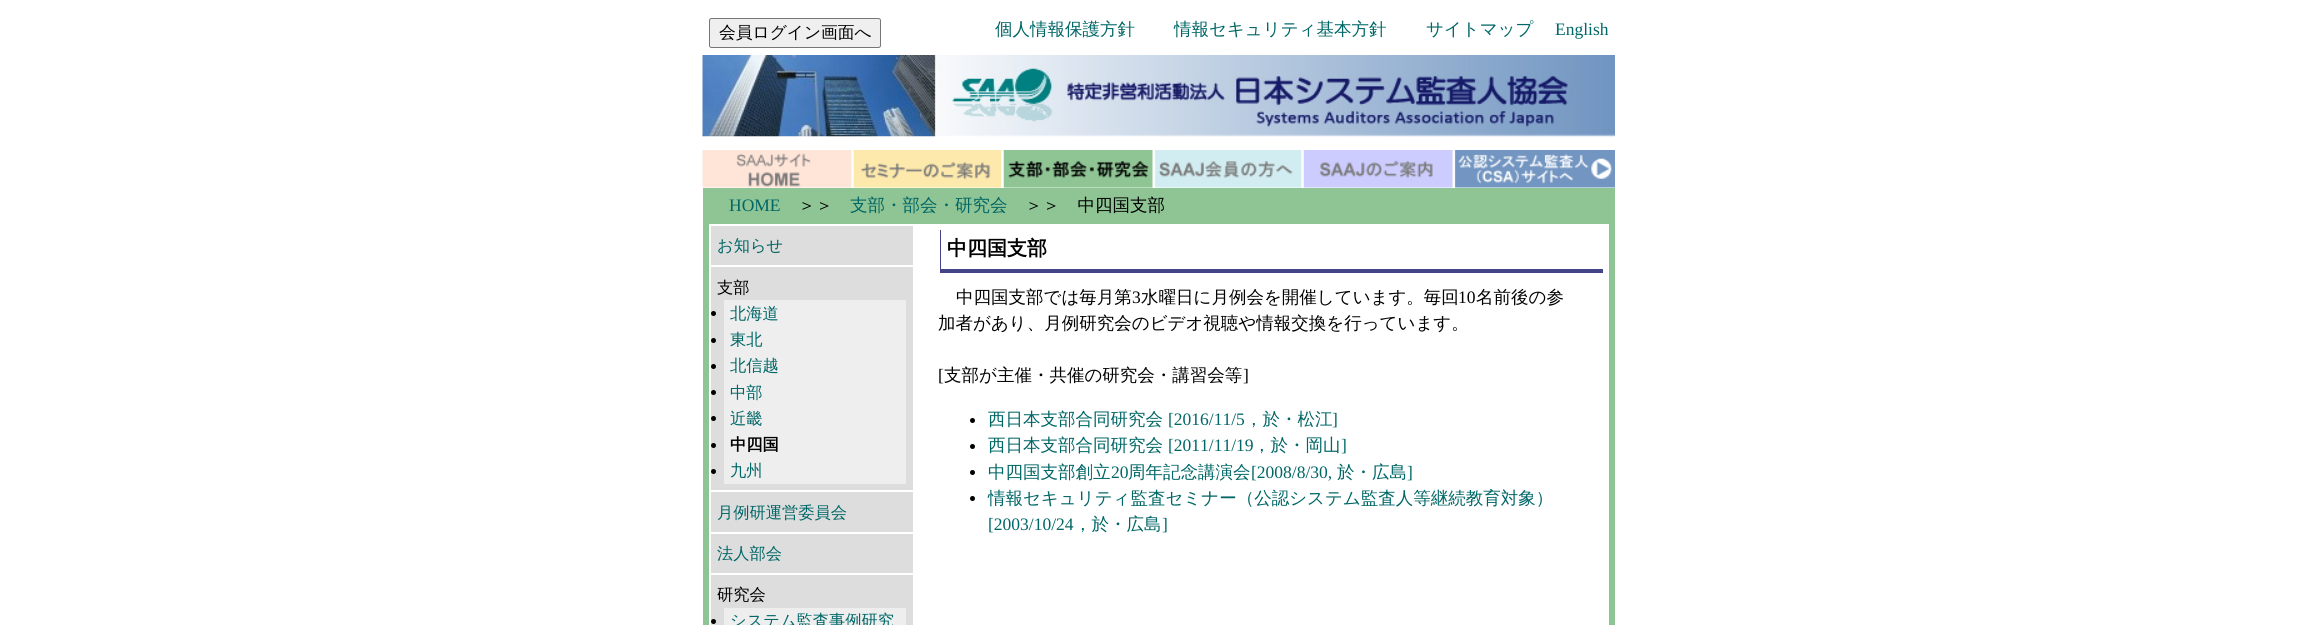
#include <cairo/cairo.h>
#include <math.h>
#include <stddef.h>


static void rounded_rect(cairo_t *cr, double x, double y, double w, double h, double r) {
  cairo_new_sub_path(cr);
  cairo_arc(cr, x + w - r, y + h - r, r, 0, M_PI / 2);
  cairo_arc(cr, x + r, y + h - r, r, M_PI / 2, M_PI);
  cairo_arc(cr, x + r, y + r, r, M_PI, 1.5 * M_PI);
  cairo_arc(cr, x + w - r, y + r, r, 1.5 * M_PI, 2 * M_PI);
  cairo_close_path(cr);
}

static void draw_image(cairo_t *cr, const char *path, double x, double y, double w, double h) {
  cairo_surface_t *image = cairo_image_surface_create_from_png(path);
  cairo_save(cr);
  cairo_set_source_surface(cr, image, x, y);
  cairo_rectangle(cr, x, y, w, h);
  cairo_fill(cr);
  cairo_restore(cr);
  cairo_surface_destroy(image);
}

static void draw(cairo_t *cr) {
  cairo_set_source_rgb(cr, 1, 1, 1);
  cairo_paint(cr);
  cairo_set_source_rgb(cr, 239 / 255.0, 239 / 255.0, 239 / 255.0);
  rounded_rect(cr, 709.5, 18.5, 171, 29, 2);
  cairo_fill_preserve(cr);
  cairo_set_source_rgb(cr, 118 / 255.0, 118 / 255.0, 118 / 255.0);
  cairo_set_line_width(cr, 1);
  cairo_stroke(cr);
  draw_image(cr, "images/1.png", 702, 55, 913, 82);
  draw_image(cr, "images/2.png", 702, 150, 913, 38);
  draw_image(cr, "images/3.png", 1005, 150, 148, 38);
  cairo_set_source_rgb(cr, 143 / 255.0, 197 / 255.0, 148 / 255.0);
  cairo_rectangle(cr, 703, 188, 912, 437);
  cairo_fill(cr);
  cairo_set_source_rgb(cr, 1, 1, 1);
  cairo_rectangle(cr, 915, 224, 694, 401);
  cairo_fill(cr);
  cairo_set_source_rgb(cr, 221 / 255.0, 221 / 255.0, 221 / 255.0);
  cairo_rectangle(cr, 711, 226, 202, 399);
  cairo_fill(cr);
  cairo_rectangle(cr, 709.5, 224.5, 205, 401);
  cairo_set_source_rgb(cr, 1, 1, 1);
  cairo_stroke(cr);
  cairo_rectangle(cr, 710.5, 225.5, 203, 40);
  cairo_stroke(cr);
  cairo_rectangle(cr, 710.5, 266.5, 203, 224);
  cairo_stroke(cr);
  cairo_set_source_rgb(cr, 238 / 255.0, 238 / 255.0, 238 / 255.0);
  cairo_rectangle(cr, 724, 300, 182, 184);
  cairo_fill(cr);
  cairo_set_source_rgb(cr, 0, 0, 0);
  cairo_arc(cr, 713.5, 313.5, 2.5, 0, 2 * M_PI);
  cairo_fill(cr);
  cairo_arc(cr, 713.5, 340.5, 2.5, 0, 2 * M_PI);
  cairo_fill(cr);
  cairo_arc(cr, 713.5, 366.5, 2.5, 0, 2 * M_PI);
  cairo_fill(cr);
  cairo_arc(cr, 713.5, 392.5, 2.5, 0, 2 * M_PI);
  cairo_fill(cr);
  cairo_arc(cr, 713.5, 418.5, 2.5, 0, 2 * M_PI);
  cairo_fill(cr);
  cairo_arc(cr, 713.5, 445.5, 2.5, 0, 2 * M_PI);
  cairo_fill(cr);
  cairo_arc(cr, 713.5, 471.5, 2.5, 0, 2 * M_PI);
  cairo_fill(cr);
  cairo_rectangle(cr, 710.5, 491.5, 203, 41);
  cairo_set_source_rgb(cr, 1, 1, 1);
  cairo_stroke(cr);
  cairo_rectangle(cr, 710.5, 533.5, 203, 40);
  cairo_stroke(cr);
  cairo_rectangle(cr, 710.5, 574.5, 203, 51);
  cairo_stroke(cr);
  cairo_set_source_rgb(cr, 238 / 255.0, 238 / 255.0, 238 / 255.0);
  cairo_rectangle(cr, 724, 608, 182, 17);
  cairo_fill(cr);
  cairo_set_source_rgb(cr, 0, 0, 0);
  cairo_arc(cr, 713.5, 621.5, 2.5, 0, 2 * M_PI);
  cairo_fill(cr);
  cairo_set_source_rgb(cr, 68 / 255.0, 68 / 255.0, 136 / 255.0);
  cairo_rectangle(cr, 940, 269, 663, 4);
  cairo_fill(cr);
  cairo_rectangle(cr, 940, 230, 1, 43);
  cairo_fill(cr);
  cairo_set_source_rgb(cr, 0, 0, 0);
  cairo_arc(cr, 972.5, 420.5, 2.5, 0, 2 * M_PI);
  cairo_fill(cr);
  cairo_arc(cr, 972.5, 446.5, 2.5, 0, 2 * M_PI);
  cairo_fill(cr);
  cairo_arc(cr, 972.5, 472.5, 2.5, 0, 2 * M_PI);
  cairo_fill(cr);
  cairo_arc(cr, 972.5, 498.5, 2.5, 0, 2 * M_PI);
  cairo_fill(cr);
  cairo_select_font_face(cr, "WenQuanYi Zen Hei Medium", CAIRO_FONT_SLANT_NORMAL, CAIRO_FONT_WEIGHT_NORMAL);
  cairo_set_font_size(cr, 16.75);
  cairo_move_to(cr, 719, 38);
  cairo_show_text(cr, "会員ログイン画面へ");
  cairo_set_font_size(cr, 17.5);
  cairo_set_source_rgb(cr, 0, 102 / 255.0, 102 / 255.0);
  cairo_move_to(cr, 995, 35);
  cairo_show_text(cr, "個人情報保護方針");
  cairo_move_to(cr, 1174, 35);
  cairo_show_text(cr, "情報セキュリティ基本方針");
  cairo_move_to(cr, 1426, 35);
  cairo_show_text(cr, "サイトマップ");
  cairo_select_font_face(cr, "Liberation Serif", CAIRO_FONT_SLANT_NORMAL, CAIRO_FONT_WEIGHT_NORMAL);
  cairo_move_to(cr, 1555, 35);
  cairo_show_text(cr, "English");
  cairo_move_to(cr, 729, 211);
  cairo_show_text(cr, "HOME");
  cairo_select_font_face(cr, "WenQuanYi Zen Hei Medium", CAIRO_FONT_SLANT_NORMAL, CAIRO_FONT_WEIGHT_NORMAL);
  cairo_set_source_rgb(cr, 0, 0, 0);
  cairo_move_to(cr, 798, 211);
  cairo_show_text(cr, "＞＞");
  cairo_set_source_rgb(cr, 0, 102 / 255.0, 102 / 255.0);
  cairo_move_to(cr, 850, 211);
  cairo_show_text(cr, "支部・部会・研究会");
  cairo_set_source_rgb(cr, 0, 0, 0);
  cairo_move_to(cr, 1025, 211);
  cairo_show_text(cr, "＞＞　中四国支部");
  cairo_set_font_size(cr, 16.25);
  cairo_set_source_rgb(cr, 0, 102 / 255.0, 102 / 255.0);
  cairo_move_to(cr, 717, 251);
  cairo_show_text(cr, "お知らせ");
  cairo_set_source_rgb(cr, 0, 0, 0);
  cairo_move_to(cr, 717, 293);
  cairo_show_text(cr, "支部");
  cairo_set_source_rgb(cr, 0, 102 / 255.0, 102 / 255.0);
  cairo_move_to(cr, 730, 319);
  cairo_show_text(cr, "北海道");
  cairo_move_to(cr, 730, 345);
  cairo_show_text(cr, "東北");
  cairo_move_to(cr, 730, 371);
  cairo_show_text(cr, "北信越");
  cairo_move_to(cr, 730, 398);
  cairo_show_text(cr, "中部");
  cairo_move_to(cr, 730, 424);
  cairo_show_text(cr, "近畿");
  cairo_select_font_face(cr, "WenQuanYi Zen Hei", CAIRO_FONT_SLANT_NORMAL, CAIRO_FONT_WEIGHT_BOLD);
  cairo_set_source_rgb(cr, 0, 0, 0);
  cairo_move_to(cr, 730, 450);
  cairo_show_text(cr, "中四国");
  cairo_select_font_face(cr, "WenQuanYi Zen Hei Medium", CAIRO_FONT_SLANT_NORMAL, CAIRO_FONT_WEIGHT_NORMAL);
  cairo_set_source_rgb(cr, 0, 102 / 255.0, 102 / 255.0);
  cairo_move_to(cr, 730, 476);
  cairo_show_text(cr, "九州");
  cairo_move_to(cr, 717, 518);
  cairo_show_text(cr, "月例研運営委員会");
  cairo_move_to(cr, 717, 559);
  cairo_show_text(cr, "法人部会");
  cairo_set_source_rgb(cr, 0, 0, 0);
  cairo_move_to(cr, 717, 600);
  cairo_show_text(cr, "研究会");
  cairo_set_source_rgb(cr, 0, 102 / 255.0, 102 / 255.0);
  cairo_move_to(cr, 730, 626);
  cairo_show_text(cr, "システム監査事例研究");
  cairo_select_font_face(cr, "WenQuanYi Zen Hei", CAIRO_FONT_SLANT_NORMAL, CAIRO_FONT_WEIGHT_BOLD);
  cairo_set_font_size(cr, 20);
  cairo_set_source_rgb(cr, 0, 0, 0);
  cairo_move_to(cr, 947, 255);
  cairo_show_text(cr, "中四国支部");
  cairo_select_font_face(cr, "WenQuanYi Zen Hei Medium", CAIRO_FONT_SLANT_NORMAL, CAIRO_FONT_WEIGHT_NORMAL);
  cairo_set_font_size(cr, 17.5);
  cairo_move_to(cr, 956, 303);
  cairo_show_text(cr, "中四国支部では毎月第");
  cairo_select_font_face(cr, "Liberation Serif", CAIRO_FONT_SLANT_NORMAL, CAIRO_FONT_WEIGHT_NORMAL);
  cairo_move_to(cr, 1132, 303);
  cairo_show_text(cr, "3");
  cairo_select_font_face(cr, "WenQuanYi Zen Hei Medium", CAIRO_FONT_SLANT_NORMAL, CAIRO_FONT_WEIGHT_NORMAL);
  cairo_move_to(cr, 1141, 303);
  cairo_show_text(cr, "水曜日に月例会を開催しています。毎回");
  cairo_select_font_face(cr, "Liberation Serif", CAIRO_FONT_SLANT_NORMAL, CAIRO_FONT_WEIGHT_NORMAL);
  cairo_move_to(cr, 1458, 303);
  cairo_show_text(cr, "10");
  cairo_select_font_face(cr, "WenQuanYi Zen Hei Medium", CAIRO_FONT_SLANT_NORMAL, CAIRO_FONT_WEIGHT_NORMAL);
  cairo_move_to(cr, 1476, 303);
  cairo_show_text(cr, "名前後の参");
  cairo_move_to(cr, 938, 329);
  cairo_show_text(cr, "加者があり、月例研究会のビデオ視聴や情報交換を行っています。");
  cairo_select_font_face(cr, "Liberation Serif", CAIRO_FONT_SLANT_NORMAL, CAIRO_FONT_WEIGHT_NORMAL);
  cairo_move_to(cr, 938, 381);
  cairo_show_text(cr, "[");
  cairo_select_font_face(cr, "WenQuanYi Zen Hei Medium", CAIRO_FONT_SLANT_NORMAL, CAIRO_FONT_WEIGHT_NORMAL);
  cairo_move_to(cr, 944, 381);
  cairo_show_text(cr, "支部が主催・共催の研究会・講習会等");
  cairo_select_font_face(cr, "Liberation Serif", CAIRO_FONT_SLANT_NORMAL, CAIRO_FONT_WEIGHT_NORMAL);
  cairo_move_to(cr, 1243, 381);
  cairo_show_text(cr, "]");
  cairo_select_font_face(cr, "WenQuanYi Zen Hei Medium", CAIRO_FONT_SLANT_NORMAL, CAIRO_FONT_WEIGHT_NORMAL);
  cairo_set_source_rgb(cr, 0, 102 / 255.0, 102 / 255.0);
  cairo_move_to(cr, 988, 425);
  cairo_show_text(cr, "西日本支部合同研究会");
  cairo_select_font_face(cr, "Liberation Serif", CAIRO_FONT_SLANT_NORMAL, CAIRO_FONT_WEIGHT_NORMAL);
  cairo_move_to(cr, 1168, 425);
  cairo_show_text(cr, "[2016/11/5");
  cairo_select_font_face(cr, "WenQuanYi Zen Hei Medium", CAIRO_FONT_SLANT_NORMAL, CAIRO_FONT_WEIGHT_NORMAL);
  cairo_move_to(cr, 1245, 425);
  cairo_show_text(cr, "，於・松江");
  cairo_select_font_face(cr, "Liberation Serif", CAIRO_FONT_SLANT_NORMAL, CAIRO_FONT_WEIGHT_NORMAL);
  cairo_move_to(cr, 1332, 425);
  cairo_show_text(cr, "]");
  cairo_select_font_face(cr, "WenQuanYi Zen Hei Medium", CAIRO_FONT_SLANT_NORMAL, CAIRO_FONT_WEIGHT_NORMAL);
  cairo_move_to(cr, 988, 451);
  cairo_show_text(cr, "西日本支部合同研究会");
  cairo_select_font_face(cr, "Liberation Serif", CAIRO_FONT_SLANT_NORMAL, CAIRO_FONT_WEIGHT_NORMAL);
  cairo_move_to(cr, 1168, 451);
  cairo_show_text(cr, "[2011/11/19");
  cairo_select_font_face(cr, "WenQuanYi Zen Hei Medium", CAIRO_FONT_SLANT_NORMAL, CAIRO_FONT_WEIGHT_NORMAL);
  cairo_move_to(cr, 1253, 451);
  cairo_show_text(cr, "，於・岡山");
  cairo_select_font_face(cr, "Liberation Serif", CAIRO_FONT_SLANT_NORMAL, CAIRO_FONT_WEIGHT_NORMAL);
  cairo_move_to(cr, 1341, 451);
  cairo_show_text(cr, "]");
  cairo_select_font_face(cr, "WenQuanYi Zen Hei Medium", CAIRO_FONT_SLANT_NORMAL, CAIRO_FONT_WEIGHT_NORMAL);
  cairo_move_to(cr, 988, 478);
  cairo_show_text(cr, "中四国支部創立");
  cairo_select_font_face(cr, "Liberation Serif", CAIRO_FONT_SLANT_NORMAL, CAIRO_FONT_WEIGHT_NORMAL);
  cairo_move_to(cr, 1111, 478);
  cairo_show_text(cr, "20");
  cairo_select_font_face(cr, "WenQuanYi Zen Hei Medium", CAIRO_FONT_SLANT_NORMAL, CAIRO_FONT_WEIGHT_NORMAL);
  cairo_move_to(cr, 1128, 478);
  cairo_show_text(cr, "周年記念講演会");
  cairo_select_font_face(cr, "Liberation Serif", CAIRO_FONT_SLANT_NORMAL, CAIRO_FONT_WEIGHT_NORMAL);
  cairo_move_to(cr, 1251, 478);
  cairo_show_text(cr, "[2008/8/30,");
  cairo_select_font_face(cr, "WenQuanYi Zen Hei Medium", CAIRO_FONT_SLANT_NORMAL, CAIRO_FONT_WEIGHT_NORMAL);
  cairo_move_to(cr, 1337, 478);
  cairo_show_text(cr, "於・広島");
  cairo_select_font_face(cr, "Liberation Serif", CAIRO_FONT_SLANT_NORMAL, CAIRO_FONT_WEIGHT_NORMAL);
  cairo_move_to(cr, 1407, 478);
  cairo_show_text(cr, "]");
  cairo_select_font_face(cr, "WenQuanYi Zen Hei Medium", CAIRO_FONT_SLANT_NORMAL, CAIRO_FONT_WEIGHT_NORMAL);
  cairo_move_to(cr, 988, 504);
  cairo_show_text(cr, "情報セキュリティ監査セミナー（公認システム監査人等継続教育対象）");
  cairo_select_font_face(cr, "Liberation Serif", CAIRO_FONT_SLANT_NORMAL, CAIRO_FONT_WEIGHT_NORMAL);
  cairo_move_to(cr, 988, 530);
  cairo_show_text(cr, "[2003/10/24");
  cairo_select_font_face(cr, "WenQuanYi Zen Hei Medium", CAIRO_FONT_SLANT_NORMAL, CAIRO_FONT_WEIGHT_NORMAL);
  cairo_move_to(cr, 1074, 530);
  cairo_show_text(cr, "，於・広島");
  cairo_select_font_face(cr, "Liberation Serif", CAIRO_FONT_SLANT_NORMAL, CAIRO_FONT_WEIGHT_NORMAL);
  cairo_move_to(cr, 1162, 530);
  cairo_show_text(cr, "]");
}

int main(void) {
  cairo_surface_t *surface = cairo_image_surface_create(CAIRO_FORMAT_RGB24, 2317, 625);
  cairo_t *cr = cairo_create(surface);
  cairo_font_options_t *options = cairo_font_options_create();
  cairo_font_options_set_hint_metrics(options, CAIRO_HINT_METRICS_OFF);
  cairo_font_options_set_hint_style(options, CAIRO_HINT_STYLE_NONE);
  cairo_set_font_options(cr, options);
  cairo_set_miter_limit(cr, 4);
  draw(cr);
  cairo_surface_write_to_png(surface, "out.png");
  cairo_font_options_destroy(options);
  cairo_destroy(cr);
  cairo_surface_destroy(surface);
  return 0;
}
